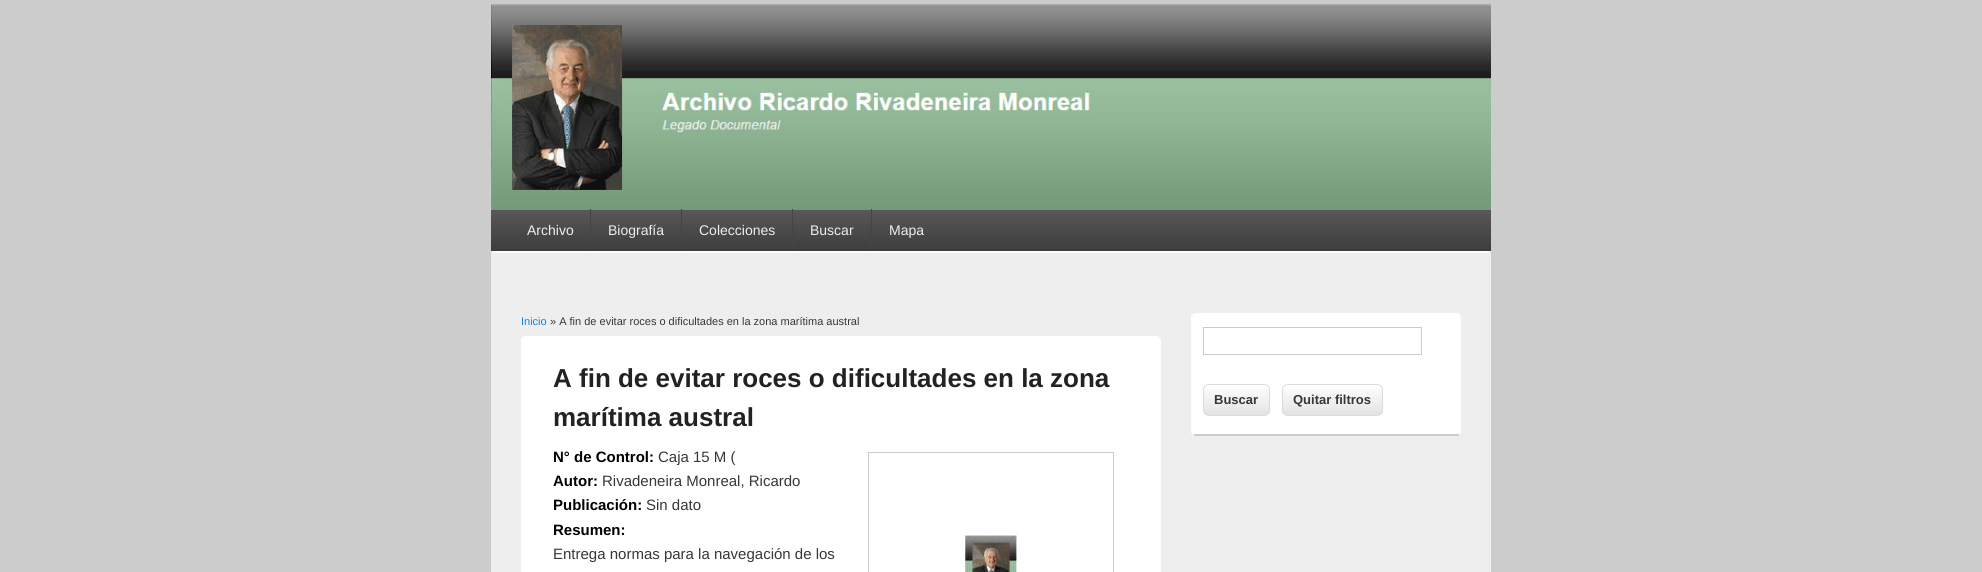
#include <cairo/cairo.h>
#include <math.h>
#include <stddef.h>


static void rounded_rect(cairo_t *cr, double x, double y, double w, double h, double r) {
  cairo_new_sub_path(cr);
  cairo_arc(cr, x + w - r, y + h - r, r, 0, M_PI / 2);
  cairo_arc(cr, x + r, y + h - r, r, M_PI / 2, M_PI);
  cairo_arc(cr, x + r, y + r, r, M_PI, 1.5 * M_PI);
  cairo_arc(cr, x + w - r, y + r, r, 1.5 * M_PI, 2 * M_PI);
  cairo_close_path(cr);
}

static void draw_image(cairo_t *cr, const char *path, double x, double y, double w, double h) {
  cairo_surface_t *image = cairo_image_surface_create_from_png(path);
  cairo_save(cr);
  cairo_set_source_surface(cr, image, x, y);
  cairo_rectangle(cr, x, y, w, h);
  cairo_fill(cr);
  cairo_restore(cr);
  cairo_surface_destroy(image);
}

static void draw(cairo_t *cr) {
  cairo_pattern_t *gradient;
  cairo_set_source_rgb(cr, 204 / 255.0, 204 / 255.0, 204 / 255.0);
  cairo_paint(cr);
  cairo_set_source_rgb(cr, 238 / 255.0, 238 / 255.0, 238 / 255.0);
  cairo_rectangle(cr, 491, 251, 1000, 321);
  cairo_fill(cr);
  cairo_set_source_rgb(cr, 1, 1, 1);
  rounded_rect(cr, 491, 4, 1000, 249, 5);
  cairo_fill(cr);
  draw_image(cr, "images/1.png", 491, 4, 1000, 206);
  gradient = cairo_pattern_create_linear(991, 209, 991, 251);
  cairo_pattern_add_color_stop_rgba(gradient, 0, 88 / 255.0, 88 / 255.0, 88 / 255.0, 1);
  cairo_pattern_add_color_stop_rgba(gradient, 1, 61 / 255.0, 61 / 255.0, 61 / 255.0, 1);
  cairo_set_source(cr, gradient);
  cairo_pattern_destroy(gradient);
  cairo_rectangle(cr, 491, 210, 1000, 41);
  cairo_fill(cr);
  cairo_set_source_rgb(cr, 68 / 255.0, 68 / 255.0, 68 / 255.0);
  cairo_rectangle(cr, 590, 209, 1, 42);
  cairo_fill(cr);
  cairo_rectangle(cr, 681, 209, 1, 42);
  cairo_fill(cr);
  cairo_rectangle(cr, 792, 209, 1, 42);
  cairo_fill(cr);
  cairo_rectangle(cr, 871, 209, 1, 42);
  cairo_fill(cr);
  cairo_set_source_rgb(cr, 1, 1, 1);
  rounded_rect(cr, 521, 336, 640, 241, 5);
  cairo_fill(cr);
  cairo_rectangle(cr, 868.5, 452.5, 245, 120);
  cairo_set_source_rgb(cr, 204 / 255.0, 204 / 255.0, 204 / 255.0);
  cairo_set_line_width(cr, 1);
  cairo_stroke(cr);
  draw_image(cr, "images/2.png", 963, 531, 56, 41);
  cairo_set_source_rgb(cr, 1, 1, 1);
  rounded_rect(cr, 1191, 313, 270, 123, 5);
  cairo_fill(cr);
  cairo_set_source_rgb(cr, 204 / 255.0, 204 / 255.0, 204 / 255.0);
  cairo_rectangle(cr, 1194, 434, 265, 2);
  cairo_fill(cr);
  cairo_rectangle(cr, 1203.5, 327.5, 218, 27);
  cairo_stroke(cr);
  cairo_save(cr);
  rounded_rect(cr, 1203, 384, 67, 32, 6);
  cairo_clip(cr);
  gradient = cairo_pattern_create_linear(1237, 385, 1237, 415);
  cairo_pattern_add_color_stop_rgba(gradient, 0, 1, 1, 1, 1);
  cairo_pattern_add_color_stop_rgba(gradient, 1, 227 / 255.0, 227 / 255.0, 227 / 255.0, 1);
  cairo_set_source(cr, gradient);
  cairo_pattern_destroy(gradient);
  cairo_rectangle(cr, 1203, 385, 67, 30);
  cairo_fill(cr);
  cairo_restore(cr);
  rounded_rect(cr, 1203.5, 384.5, 66, 31, 5.5);
  cairo_set_source_rgb(cr, 219 / 255.0, 219 / 255.0, 219 / 255.0);
  cairo_stroke(cr);
  cairo_save(cr);
  rounded_rect(cr, 1282, 384, 101, 32, 6);
  cairo_clip(cr);
  gradient = cairo_pattern_create_linear(1333, 385, 1333, 415);
  cairo_pattern_add_color_stop_rgba(gradient, 0, 1, 1, 1, 1);
  cairo_pattern_add_color_stop_rgba(gradient, 1, 227 / 255.0, 227 / 255.0, 227 / 255.0, 1);
  cairo_set_source(cr, gradient);
  cairo_pattern_destroy(gradient);
  cairo_rectangle(cr, 1282, 385, 101, 30);
  cairo_fill(cr);
  cairo_restore(cr);
  rounded_rect(cr, 1282.5, 384.5, 100, 31, 5.5);
  cairo_stroke(cr);
  cairo_select_font_face(cr, "Liberation Sans", CAIRO_FONT_SLANT_NORMAL, CAIRO_FONT_WEIGHT_NORMAL);
  cairo_set_font_size(cr, 14);
  cairo_set_source_rgb(cr, 238 / 255.0, 238 / 255.0, 238 / 255.0);
  cairo_move_to(cr, 527, 235);
  cairo_show_text(cr, "Archivo");
  cairo_move_to(cr, 608, 235);
  cairo_show_text(cr, "Biografía");
  cairo_move_to(cr, 699, 235);
  cairo_show_text(cr, "Colecciones");
  cairo_move_to(cr, 810, 235);
  cairo_show_text(cr, "Buscar");
  cairo_move_to(cr, 889, 235);
  cairo_show_text(cr, "Mapa");
  cairo_set_font_size(cr, 11);
  cairo_set_source_rgb(cr, 25 / 255.0, 130 / 255.0, 209 / 255.0);
  cairo_move_to(cr, 521, 325);
  cairo_show_text(cr, "Inicio");
  cairo_set_source_rgb(cr, 55 / 255.0, 55 / 255.0, 55 / 255.0);
  cairo_move_to(cr, 550, 325);
  cairo_show_text(cr, "» A fin de evitar roces o dificultades en la zona marítima austral");
  cairo_select_font_face(cr, "Liberation Sans", CAIRO_FONT_SLANT_NORMAL, CAIRO_FONT_WEIGHT_BOLD);
  cairo_set_font_size(cr, 26);
  cairo_set_source_rgb(cr, 34 / 255.0, 34 / 255.0, 34 / 255.0);
  cairo_move_to(cr, 553, 387);
  cairo_show_text(cr, "A fin de evitar roces o dificultades en la zona");
  cairo_move_to(cr, 553, 426);
  cairo_show_text(cr, "marítima austral");
  cairo_set_font_size(cr, 15);
  cairo_set_source_rgb(cr, 0, 0, 0);
  cairo_move_to(cr, 553, 462);
  cairo_show_text(cr, "N° de Control:");
  cairo_select_font_face(cr, "Liberation Sans", CAIRO_FONT_SLANT_NORMAL, CAIRO_FONT_WEIGHT_NORMAL);
  cairo_set_source_rgb(cr, 55 / 255.0, 55 / 255.0, 55 / 255.0);
  cairo_move_to(cr, 658, 462);
  cairo_show_text(cr, "Caja 15 M (");
  cairo_select_font_face(cr, "Liberation Sans", CAIRO_FONT_SLANT_NORMAL, CAIRO_FONT_WEIGHT_BOLD);
  cairo_set_source_rgb(cr, 0, 0, 0);
  cairo_move_to(cr, 553, 486);
  cairo_show_text(cr, "Autor:");
  cairo_select_font_face(cr, "Liberation Sans", CAIRO_FONT_SLANT_NORMAL, CAIRO_FONT_WEIGHT_NORMAL);
  cairo_set_source_rgb(cr, 55 / 255.0, 55 / 255.0, 55 / 255.0);
  cairo_move_to(cr, 602, 486);
  cairo_show_text(cr, "Rivadeneira Monreal, Ricardo");
  cairo_select_font_face(cr, "Liberation Sans", CAIRO_FONT_SLANT_NORMAL, CAIRO_FONT_WEIGHT_BOLD);
  cairo_set_source_rgb(cr, 0, 0, 0);
  cairo_move_to(cr, 553, 510);
  cairo_show_text(cr, "Publicación:");
  cairo_select_font_face(cr, "Liberation Sans", CAIRO_FONT_SLANT_NORMAL, CAIRO_FONT_WEIGHT_NORMAL);
  cairo_set_source_rgb(cr, 55 / 255.0, 55 / 255.0, 55 / 255.0);
  cairo_move_to(cr, 646, 510);
  cairo_show_text(cr, "Sin dato");
  cairo_select_font_face(cr, "Liberation Sans", CAIRO_FONT_SLANT_NORMAL, CAIRO_FONT_WEIGHT_BOLD);
  cairo_set_source_rgb(cr, 0, 0, 0);
  cairo_move_to(cr, 553, 535);
  cairo_show_text(cr, "Resumen:");
  cairo_select_font_face(cr, "Liberation Sans", CAIRO_FONT_SLANT_NORMAL, CAIRO_FONT_WEIGHT_NORMAL);
  cairo_set_source_rgb(cr, 55 / 255.0, 55 / 255.0, 55 / 255.0);
  cairo_move_to(cr, 553, 559);
  cairo_show_text(cr, "Entrega normas para la navegación de los");
  cairo_select_font_face(cr, "Liberation Sans", CAIRO_FONT_SLANT_NORMAL, CAIRO_FONT_WEIGHT_BOLD);
  cairo_set_font_size(cr, 13);
  cairo_move_to(cr, 1214, 404);
  cairo_show_text(cr, "Buscar");
  cairo_move_to(cr, 1293, 404);
  cairo_show_text(cr, "Quitar filtros");
}

int main(void) {
  cairo_surface_t *surface = cairo_image_surface_create(CAIRO_FORMAT_RGB24, 1982, 572);
  cairo_t *cr = cairo_create(surface);
  cairo_font_options_t *options = cairo_font_options_create();
  cairo_font_options_set_hint_metrics(options, CAIRO_HINT_METRICS_OFF);
  cairo_font_options_set_hint_style(options, CAIRO_HINT_STYLE_NONE);
  cairo_set_font_options(cr, options);
  cairo_set_miter_limit(cr, 4);
  draw(cr);
  cairo_surface_write_to_png(surface, "out.png");
  cairo_font_options_destroy(options);
  cairo_destroy(cr);
  cairo_surface_destroy(surface);
  return 0;
}
